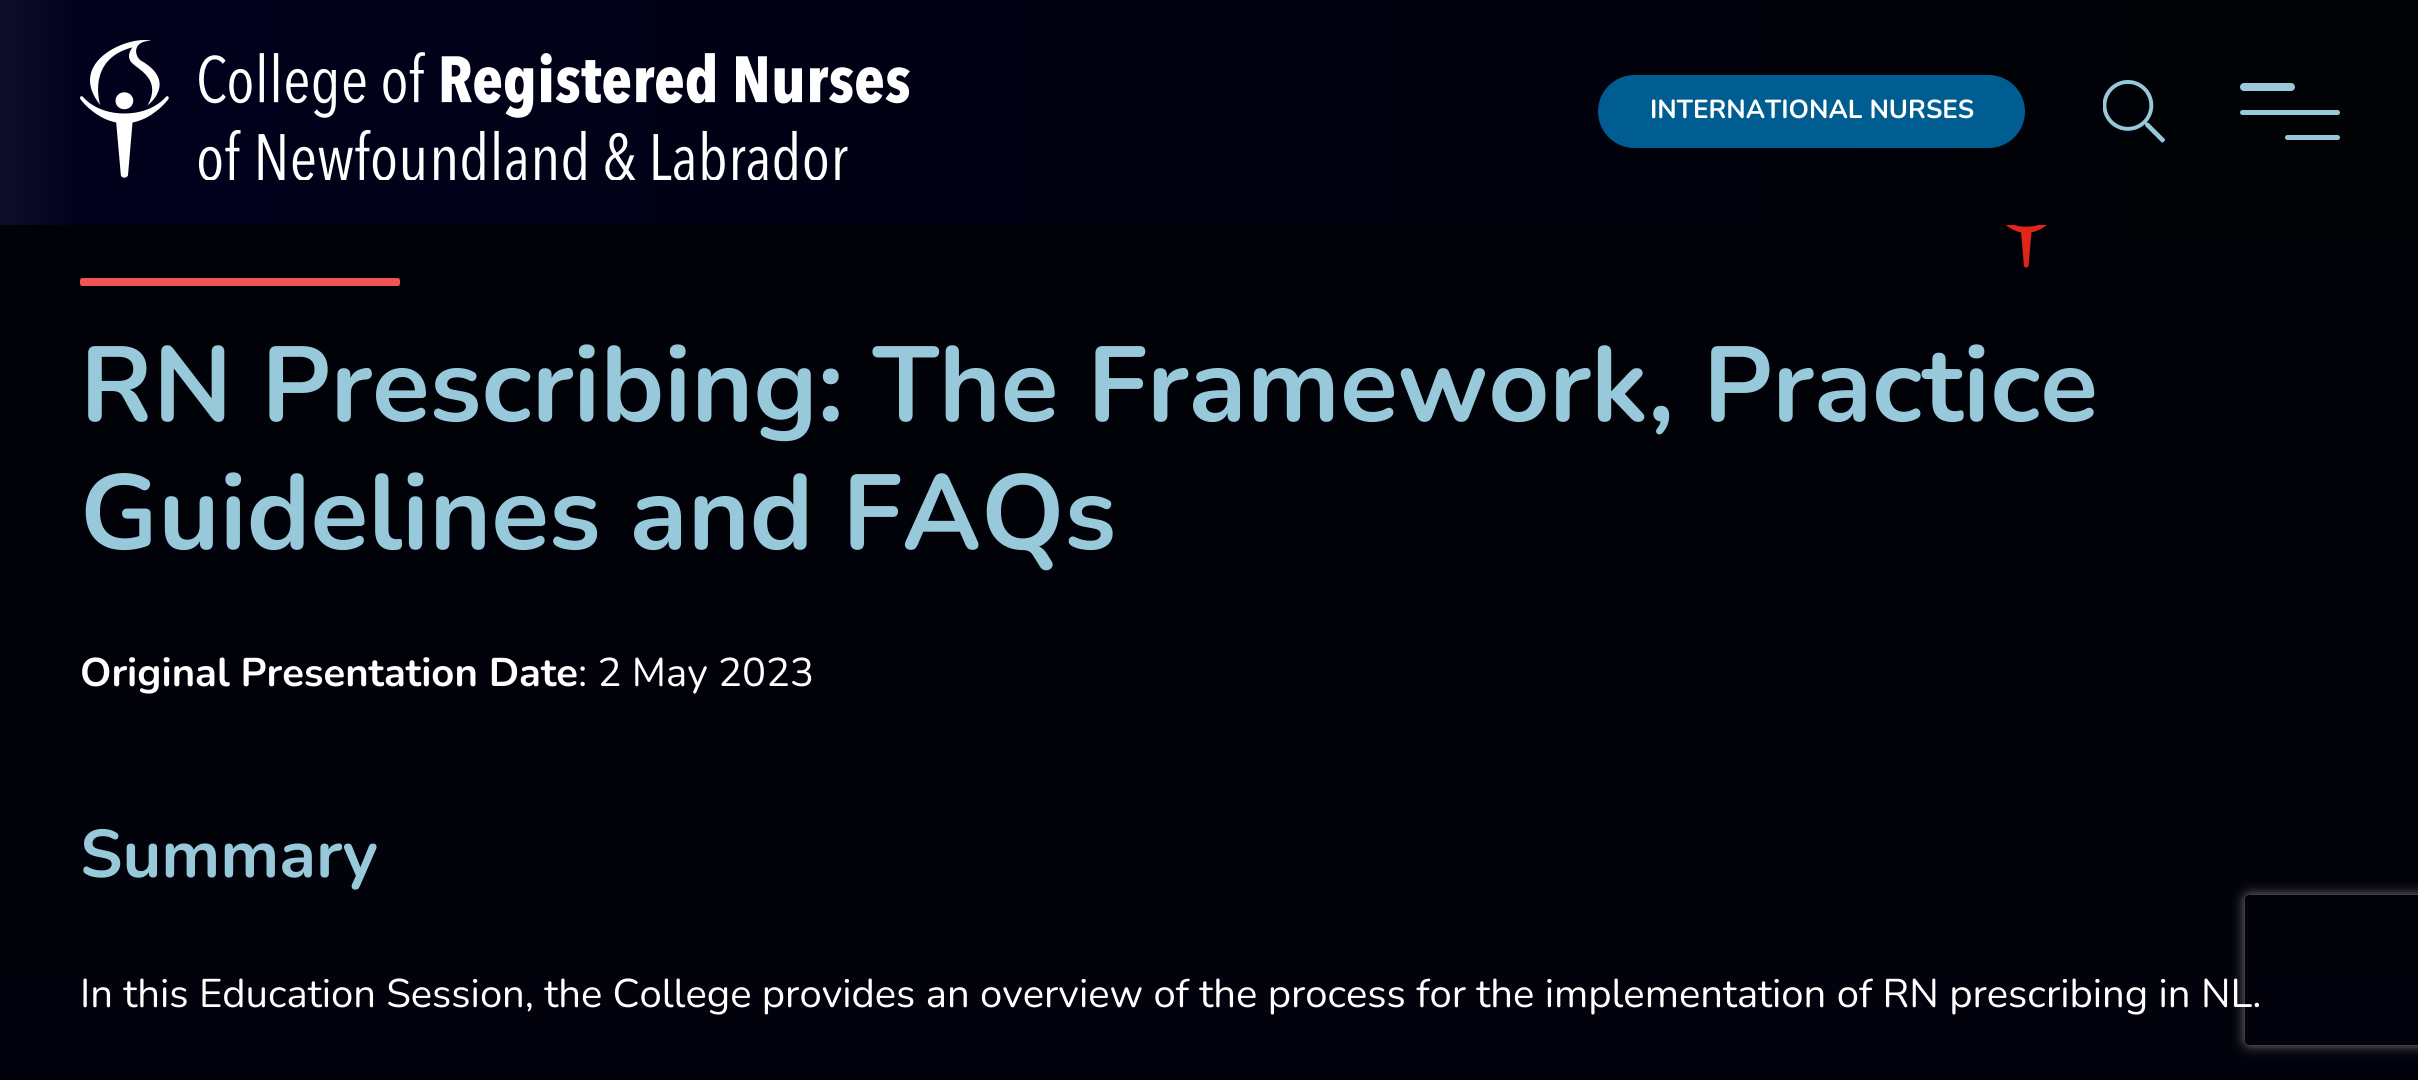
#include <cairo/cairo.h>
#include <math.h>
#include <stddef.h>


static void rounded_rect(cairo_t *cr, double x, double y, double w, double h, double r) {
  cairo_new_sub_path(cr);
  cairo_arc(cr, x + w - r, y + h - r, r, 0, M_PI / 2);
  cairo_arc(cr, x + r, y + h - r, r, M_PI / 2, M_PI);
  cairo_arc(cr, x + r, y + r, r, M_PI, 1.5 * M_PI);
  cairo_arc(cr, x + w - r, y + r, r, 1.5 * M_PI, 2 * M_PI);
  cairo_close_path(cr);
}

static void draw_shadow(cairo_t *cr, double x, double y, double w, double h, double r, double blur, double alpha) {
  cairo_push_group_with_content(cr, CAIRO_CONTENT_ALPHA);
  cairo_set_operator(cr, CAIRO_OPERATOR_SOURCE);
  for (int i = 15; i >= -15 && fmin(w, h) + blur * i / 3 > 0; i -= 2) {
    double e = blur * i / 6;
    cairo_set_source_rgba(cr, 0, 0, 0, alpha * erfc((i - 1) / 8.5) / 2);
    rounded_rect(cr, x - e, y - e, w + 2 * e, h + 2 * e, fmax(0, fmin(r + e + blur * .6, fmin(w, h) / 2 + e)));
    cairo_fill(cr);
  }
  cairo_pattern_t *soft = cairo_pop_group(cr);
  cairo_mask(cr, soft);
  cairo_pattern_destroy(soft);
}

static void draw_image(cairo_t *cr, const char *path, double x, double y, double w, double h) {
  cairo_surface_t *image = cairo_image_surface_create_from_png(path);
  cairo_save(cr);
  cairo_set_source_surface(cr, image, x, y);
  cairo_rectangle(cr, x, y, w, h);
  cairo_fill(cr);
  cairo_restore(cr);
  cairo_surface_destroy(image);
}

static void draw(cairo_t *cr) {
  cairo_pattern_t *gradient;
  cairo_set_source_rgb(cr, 1, 1, 1);
  cairo_paint(cr);
  gradient = cairo_pattern_create_linear(0, 113, 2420, 112);
  cairo_pattern_add_color_stop_rgba(gradient, 0.02, 1 / 255.0, 1 / 255.0, 29 / 255.0, 1);
  cairo_pattern_add_color_stop_rgba(gradient, 0.98, 1 / 255.0, 2 / 255.0, 4 / 255.0, 1);
  cairo_set_source(cr, gradient);
  cairo_pattern_destroy(gradient);
  cairo_rectangle(cr, 80, 0, 2338, 225);
  cairo_fill(cr);
  gradient = cairo_pattern_create_linear(0, 113, 80, 113);
  cairo_pattern_add_color_stop_rgba(gradient, 0, 14 / 255.0, 14 / 255.0, 40 / 255.0, 1);
  cairo_pattern_add_color_stop_rgba(gradient, 1, 1 / 255.0, 1 / 255.0, 29 / 255.0, 1);
  cairo_set_source(cr, gradient);
  cairo_pattern_destroy(gradient);
  cairo_rectangle(cr, 0, 0, 80, 225);
  cairo_fill(cr);
  draw_image(cr, "images/1.png", 80, 40, 830, 140);
  gradient = cairo_pattern_create_linear(1045, -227, 1723, 450);
  cairo_pattern_add_color_stop_rgba(gradient, 0, 17 / 255.0, 19 / 255.0, 21 / 255.0, 1);
  cairo_pattern_add_color_stop_rgba(gradient, 0.5, 20 / 255.0, 110 / 255.0, 183 / 255.0, 1);
  cairo_pattern_add_color_stop_rgba(gradient, 0.5, 0, 93 / 255.0, 145 / 255.0, 1);
  cairo_set_source(cr, gradient);
  cairo_pattern_destroy(gradient);
  rounded_rect(cr, 1598, 75, 427, 73, 36.5);
  cairo_fill(cr);
  draw_image(cr, "images/2.png", 2103, 80, 62, 63);
  cairo_set_source_rgb(cr, 152 / 255.0, 201 / 255.0, 218 / 255.0);
  rounded_rect(cr, 2240, 83, 55, 8, 4);
  cairo_fill(cr);
  rounded_rect(cr, 2240, 110, 100, 5, 2.5);
  cairo_fill(cr);
  rounded_rect(cr, 2285, 135, 55, 5, 2.5);
  cairo_fill(cr);
  gradient = cairo_pattern_create_linear(1210, -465, 1210, 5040);
  cairo_pattern_add_color_stop_rgba(gradient, 0, 1 / 255.0, 2 / 255.0, 4 / 255.0, 1);
  cairo_pattern_add_color_stop_rgba(gradient, 1, 1 / 255.0, 1 / 255.0, 29 / 255.0, 1);
  cairo_set_source(cr, gradient);
  cairo_pattern_destroy(gradient);
  cairo_rectangle(cr, 0, 225, 2418, 855);
  cairo_fill(cr);
  draw_image(cr, "images/3.png", 2005, 225, 42, 43);
  cairo_set_source_rgb(cr, 240 / 255.0, 85 / 255.0, 86 / 255.0);
  rounded_rect(cr, 80, 278, 320, 8, 2.5);
  cairo_fill(cr);
  cairo_save(cr);
  cairo_set_fill_rule(cr, CAIRO_FILL_RULE_EVEN_ODD);
  cairo_new_path(cr);
  cairo_move_to(cr, 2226, 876);
  cairo_line_to(cr, 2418, 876);
  cairo_line_to(cr, 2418, 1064);
  cairo_line_to(cr, 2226, 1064);
  cairo_close_path(cr);
  cairo_move_to(cr, 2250, 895);
  cairo_line_to(cr, 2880, 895);
  cairo_curve_to(cr, 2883, 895, 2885, 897, 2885, 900);
  cairo_line_to(cr, 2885, 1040);
  cairo_curve_to(cr, 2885, 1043, 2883, 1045, 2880, 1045);
  cairo_line_to(cr, 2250, 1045);
  cairo_curve_to(cr, 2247, 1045, 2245, 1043, 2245, 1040);
  cairo_line_to(cr, 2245, 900);
  cairo_curve_to(cr, 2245, 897, 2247, 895, 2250, 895);
  cairo_close_path(cr);
  cairo_clip(cr);
  cairo_set_source_rgb(cr, 128 / 255.0, 128 / 255.0, 128 / 255.0);
  draw_shadow(cr, 2245, 895, 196, 150, 5, 6, 1);
  cairo_restore(cr);
  cairo_select_font_face(cr, "Nunito", CAIRO_FONT_SLANT_NORMAL, CAIRO_FONT_WEIGHT_BOLD);
  cairo_set_font_size(cr, 26);
  cairo_set_source_rgb(cr, 1, 1, 1);
  cairo_move_to(cr, 1650, 118);
  cairo_show_text(cr, "INTERNATIONAL NURSES");
  cairo_set_font_size(cr, 106.25);
  cairo_set_source_rgb(cr, 152 / 255.0, 201 / 255.0, 218 / 255.0);
  cairo_move_to(cr, 80, 421);
  cairo_show_text(cr, "RN Prescribing: The Framework, Practice");
  cairo_move_to(cr, 80, 549);
  cairo_show_text(cr, "Guidelines and FAQs");
  cairo_set_font_size(cr, 40);
  cairo_set_source_rgb(cr, 1, 1, 1);
  cairo_move_to(cr, 80, 686);
  cairo_show_text(cr, "Original Presentation Date");
  cairo_select_font_face(cr, "Nunito", CAIRO_FONT_SLANT_NORMAL, CAIRO_FONT_WEIGHT_NORMAL);
  cairo_move_to(cr, 578, 686);
  cairo_show_text(cr, ": 2 May 2023");
  cairo_select_font_face(cr, "Nunito", CAIRO_FONT_SLANT_NORMAL, CAIRO_FONT_WEIGHT_BOLD);
  cairo_set_font_size(cr, 67.25);
  cairo_set_source_rgb(cr, 152 / 255.0, 201 / 255.0, 218 / 255.0);
  cairo_move_to(cr, 80, 877);
  cairo_show_text(cr, "Summary");
  cairo_select_font_face(cr, "Nunito", CAIRO_FONT_SLANT_NORMAL, CAIRO_FONT_WEIGHT_NORMAL);
  cairo_set_font_size(cr, 40);
  cairo_set_source_rgb(cr, 1, 1, 1);
  cairo_move_to(cr, 80, 1007);
  cairo_show_text(cr, "In this Education Session, the College provides an overview of the process for the implementation of RN prescribing in NL.");
}

int main(void) {
  cairo_surface_t *surface = cairo_image_surface_create(CAIRO_FORMAT_RGB24, 2418, 1080);
  cairo_t *cr = cairo_create(surface);
  cairo_font_options_t *options = cairo_font_options_create();
  cairo_font_options_set_hint_metrics(options, CAIRO_HINT_METRICS_OFF);
  cairo_font_options_set_hint_style(options, CAIRO_HINT_STYLE_NONE);
  cairo_set_font_options(cr, options);
  cairo_set_miter_limit(cr, 4);
  draw(cr);
  cairo_surface_write_to_png(surface, "out.png");
  cairo_font_options_destroy(options);
  cairo_destroy(cr);
  cairo_surface_destroy(surface);
  return 0;
}
